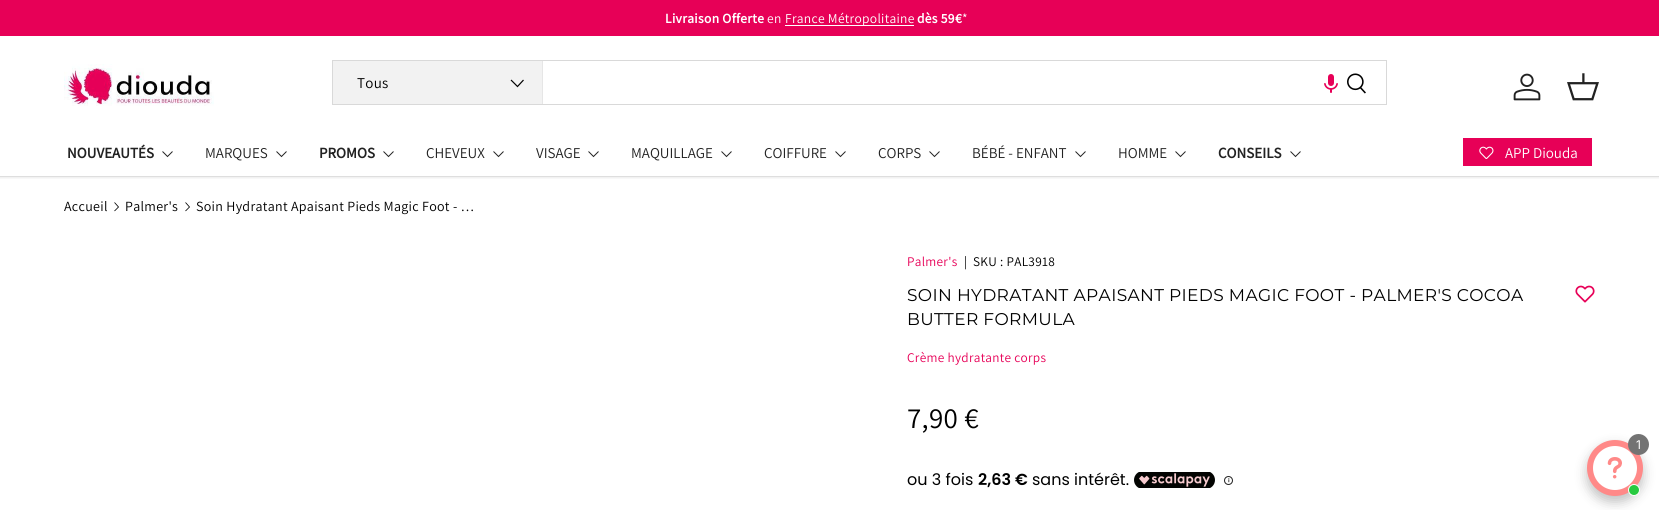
#include <cairo/cairo.h>
#include <math.h>
#include <stddef.h>


static void draw_spaced(cairo_t *cr, double x, double y, const char *s, double letter, double word) {
  cairo_move_to(cr, x, y);
  while (*s) {
    char ch[5] = {0};
    int n = 0;
    do ch[n++] = *s++; while ((*s & 0xC0) == 0x80);
    cairo_show_text(cr, ch);
    cairo_rel_move_to(cr, letter + word * (*ch == ' '), 0);
  }
}

static void rounded_rect(cairo_t *cr, double x, double y, double w, double h, double r) {
  cairo_new_sub_path(cr);
  cairo_arc(cr, x + w - r, y + h - r, r, 0, M_PI / 2);
  cairo_arc(cr, x + r, y + h - r, r, M_PI / 2, M_PI);
  cairo_arc(cr, x + r, y + r, r, M_PI, 1.5 * M_PI);
  cairo_arc(cr, x + w - r, y + r, r, 1.5 * M_PI, 2 * M_PI);
  cairo_close_path(cr);
}

static void draw_shadow(cairo_t *cr, double x, double y, double w, double h, double r, double blur, double alpha) {
  cairo_push_group_with_content(cr, CAIRO_CONTENT_ALPHA);
  cairo_set_operator(cr, CAIRO_OPERATOR_SOURCE);
  for (int i = 15; i >= -15 && fmin(w, h) + blur * i / 3 > 0; i -= 2) {
    double e = blur * i / 6;
    cairo_set_source_rgba(cr, 0, 0, 0, alpha * erfc((i - 1) / 8.5) / 2);
    rounded_rect(cr, x - e, y - e, w + 2 * e, h + 2 * e, fmax(0, fmin(r + e + blur * .6, fmin(w, h) / 2 + e)));
    cairo_fill(cr);
  }
  cairo_pattern_t *soft = cairo_pop_group(cr);
  cairo_mask(cr, soft);
  cairo_pattern_destroy(soft);
}

static void draw_image(cairo_t *cr, const char *path, double x, double y, double w, double h) {
  cairo_surface_t *image = cairo_image_surface_create_from_png(path);
  cairo_save(cr);
  cairo_set_source_surface(cr, image, x, y);
  cairo_rectangle(cr, x, y, w, h);
  cairo_fill(cr);
  cairo_restore(cr);
  cairo_surface_destroy(image);
}

static void draw(cairo_t *cr) {
  cairo_pattern_t *gradient;
  cairo_set_source_rgb(cr, 1, 1, 1);
  cairo_paint(cr);
  cairo_save(cr);
  cairo_rectangle(cr, 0, 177, 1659, 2);
  cairo_clip(cr);
  cairo_set_source_rgb(cr, 0, 0, 0);
  draw_shadow(cr, -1, 35, 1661, 143, 0, 1.5, 0.08);
  cairo_restore(cr);
  cairo_set_source_rgb(cr, 231 / 255.0, 0, 87 / 255.0);
  cairo_rectangle(cr, 0, 0, 1659, 36);
  cairo_fill(cr);
  cairo_set_source_rgb(cr, 1, 1, 1);
  cairo_rectangle(cr, 785, 25, 129, 1);
  cairo_fill(cr);
  draw_image(cr, "images/1.png", 64, 64, 150, 42);
  cairo_rectangle(cr, 332.5, 60.5, 1054, 44);
  cairo_set_source_rgb(cr, 217 / 255.0, 217 / 255.0, 217 / 255.0);
  cairo_set_line_width(cr, 1);
  cairo_stroke(cr);
  cairo_set_source_rgb(cr, 242 / 255.0, 242 / 255.0, 242 / 255.0);
  cairo_rectangle(cr, 333, 61, 209, 43);
  cairo_fill(cr);
  cairo_set_source_rgb(cr, 230 / 255.0, 230 / 255.0, 230 / 255.0);
  cairo_rectangle(cr, 542, 61, 1, 43);
  cairo_fill(cr);
  cairo_new_path(cr);
  cairo_move_to(cr, 523.5, 80);
  cairo_line_to(cr, 517.5, 86.5);
  cairo_line_to(cr, 511, 80);
  cairo_set_source_rgb(cr, 0, 0, 0);
  cairo_set_line_width(cr, 1.2);
  cairo_stroke(cr);
  draw_image(cr, "images/2.png", 1324, 74, 14, 19);
  draw_image(cr, "images/3.png", 1347, 73, 19, 21);
  draw_image(cr, "images/4.png", 1513, 73, 28, 28);
  draw_image(cr, "images/5.png", 1567, 73, 32, 28);
  cairo_new_path(cr);
  cairo_move_to(cr, 172.5, 151.5);
  cairo_line_to(cr, 167.5, 156.5);
  cairo_line_to(cr, 162.5, 151.5);
  cairo_set_source_rgb(cr, 34 / 255.0, 34 / 255.0, 34 / 255.0);
  cairo_set_line_width(cr, 1);
  cairo_stroke(cr);
  cairo_new_path(cr);
  cairo_move_to(cr, 286.5, 151.5);
  cairo_line_to(cr, 281.5, 156.5);
  cairo_line_to(cr, 276.5, 151.5);
  cairo_stroke(cr);
  cairo_new_path(cr);
  cairo_move_to(cr, 393.5, 151.5);
  cairo_line_to(cr, 388.5, 156.5);
  cairo_line_to(cr, 383.5, 151.5);
  cairo_stroke(cr);
  cairo_new_path(cr);
  cairo_move_to(cr, 503.5, 151.5);
  cairo_line_to(cr, 498.5, 156.5);
  cairo_line_to(cr, 493.5, 151.5);
  cairo_stroke(cr);
  cairo_new_path(cr);
  cairo_move_to(cr, 598.5, 151.5);
  cairo_line_to(cr, 593.5, 156.5);
  cairo_line_to(cr, 588.5, 151.5);
  cairo_stroke(cr);
  cairo_new_path(cr);
  cairo_move_to(cr, 731.5, 151.5);
  cairo_line_to(cr, 726.5, 156.5);
  cairo_line_to(cr, 721.5, 151.5);
  cairo_stroke(cr);
  cairo_new_path(cr);
  cairo_move_to(cr, 845.5, 151.5);
  cairo_line_to(cr, 840.5, 156.5);
  cairo_line_to(cr, 835.5, 151.5);
  cairo_stroke(cr);
  cairo_new_path(cr);
  cairo_move_to(cr, 939.5, 151.5);
  cairo_line_to(cr, 934.5, 156.5);
  cairo_line_to(cr, 929.5, 151.5);
  cairo_stroke(cr);
  cairo_new_path(cr);
  cairo_move_to(cr, 1085.5, 151.5);
  cairo_line_to(cr, 1080.5, 156.5);
  cairo_line_to(cr, 1075.5, 151.5);
  cairo_stroke(cr);
  cairo_new_path(cr);
  cairo_move_to(cr, 1185.5, 151.5);
  cairo_line_to(cr, 1180.5, 156.5);
  cairo_line_to(cr, 1175.5, 151.5);
  cairo_stroke(cr);
  cairo_new_path(cr);
  cairo_move_to(cr, 1300.5, 151.5);
  cairo_line_to(cr, 1295.5, 156.5);
  cairo_line_to(cr, 1290.5, 151.5);
  cairo_stroke(cr);
  gradient = cairo_pattern_create_linear(1218, 107, 1583, 197);
  cairo_pattern_add_color_stop_rgba(gradient, 0.6, 236 / 255.0, 52 / 255.0, 121 / 255.0, 1);
  cairo_pattern_add_color_stop_rgba(gradient, 0.6, 231 / 255.0, 0, 87 / 255.0, 1);
  cairo_pattern_add_color_stop_rgba(gradient, 1, 231 / 255.0, 0, 87 / 255.0, 1);
  cairo_set_source(cr, gradient);
  cairo_pattern_destroy(gradient);
  cairo_rectangle(cr, 1464, 139, 127, 26);
  cairo_fill(cr);
  cairo_rectangle(cr, 1463.5, 138.5, 128, 27);
  cairo_set_source_rgb(cr, 231 / 255.0, 0, 87 / 255.0);
  cairo_stroke(cr);
  draw_image(cr, "images/6.png", 1479, 146, 15, 13);
  cairo_set_source_rgb(cr, 222 / 255.0, 222 / 255.0, 222 / 255.0);
  cairo_rectangle(cr, 0, 176, 1659, 1);
  cairo_fill(cr);
  cairo_new_path(cr);
  cairo_move_to(cr, 114.5, 202.5);
  cairo_line_to(cr, 118.5, 207);
  cairo_line_to(cr, 114.5, 211);
  cairo_set_source_rgb(cr, 0, 0, 0);
  cairo_set_line_width(cr, 0.8);
  cairo_stroke(cr);
  cairo_new_path(cr);
  cairo_move_to(cr, 185.5, 202.5);
  cairo_line_to(cr, 189.5, 207);
  cairo_line_to(cr, 185.5, 211);
  cairo_stroke(cr);
  draw_image(cr, "images/7.png", 1575, 285, 20, 18);
  draw_image(cr, "images/8.png", 1134, 472, 81, 16);
  draw_image(cr, "images/9.png", 1224, 476, 9, 9);
  cairo_set_source_rgb(cr, 0, 0, 0);
  draw_shadow(cr, 1587, 446, 56, 56, 28, 6, 0.25);
  cairo_set_source_rgb(cr, 1, 137 / 255.0, 136 / 255.0);
  cairo_arc(cr, 1615, 468, 28, 0, 2 * M_PI);
  cairo_fill(cr);
  cairo_set_source_rgb(cr, 1, 1, 1);
  cairo_arc(cr, 1615, 468, 22, 0, 2 * M_PI);
  cairo_fill(cr);
  draw_image(cr, "images/10.png", 1607, 457, 15, 22);
  cairo_set_source_rgb(cr, 39 / 255.0, 202 / 255.0, 64 / 255.0);
  cairo_arc(cr, 1634, 490, 5.5, 0, 2 * M_PI);
  cairo_fill_preserve(cr);
  cairo_set_source_rgb(cr, 1, 1, 1);
  cairo_set_line_width(cr, 1);
  cairo_stroke(cr);
  cairo_set_source_rgb(cr, 115 / 255.0, 115 / 255.0, 115 / 255.0);
  cairo_arc(cr, 1638.5, 444.5, 10.5, 0, 2 * M_PI);
  cairo_fill(cr);
  cairo_select_font_face(cr, "Assistant", CAIRO_FONT_SLANT_NORMAL, CAIRO_FONT_WEIGHT_BOLD);
  cairo_set_font_size(cr, 13.5);
  cairo_set_source_rgb(cr, 1, 1, 1);
  draw_spaced(cr, 665, 23, "Livraison Offerte", 0.3, 0);
  cairo_select_font_face(cr, "Assistant", CAIRO_FONT_SLANT_NORMAL, CAIRO_FONT_WEIGHT_NORMAL);
  draw_spaced(cr, 785, 23, "France Métropolitaine", 0.3, 0);
  cairo_select_font_face(cr, "Assistant", CAIRO_FONT_SLANT_NORMAL, CAIRO_FONT_WEIGHT_BOLD);
  draw_spaced(cr, 917, 23, "dès 59€", 0.3, 0);
  cairo_select_font_face(cr, "Assistant", CAIRO_FONT_SLANT_NORMAL, CAIRO_FONT_WEIGHT_NORMAL);
  draw_spaced(cr, 962, 23, "*", 0.3, 0);
  draw_spaced(cr, 767, 23, "en", 0.3, 0);
  cairo_set_font_size(cr, 15);
  cairo_set_source_rgb(cr, 0, 0, 0);
  draw_spaced(cr, 357, 88, "Tous", 0.3, 0);
  cairo_select_font_face(cr, "Assistant", CAIRO_FONT_SLANT_NORMAL, CAIRO_FONT_WEIGHT_BOLD);
  cairo_set_source_rgb(cr, 34 / 255.0, 34 / 255.0, 34 / 255.0);
  cairo_move_to(cr, 67, 158);
  cairo_show_text(cr, "NOUVEAUTÉS");
  cairo_select_font_face(cr, "Assistant", CAIRO_FONT_SLANT_NORMAL, CAIRO_FONT_WEIGHT_NORMAL);
  cairo_move_to(cr, 205, 158);
  cairo_show_text(cr, "MARQUES");
  cairo_select_font_face(cr, "Assistant", CAIRO_FONT_SLANT_NORMAL, CAIRO_FONT_WEIGHT_BOLD);
  cairo_move_to(cr, 319, 158);
  cairo_show_text(cr, "PROMOS");
  cairo_select_font_face(cr, "Assistant", CAIRO_FONT_SLANT_NORMAL, CAIRO_FONT_WEIGHT_NORMAL);
  cairo_move_to(cr, 426, 158);
  cairo_show_text(cr, "CHEVEUX");
  cairo_move_to(cr, 536, 158);
  cairo_show_text(cr, "VISAGE");
  cairo_move_to(cr, 631, 158);
  cairo_show_text(cr, "MAQUILLAGE");
  cairo_move_to(cr, 764, 158);
  cairo_show_text(cr, "COIFFURE");
  cairo_move_to(cr, 878, 158);
  cairo_show_text(cr, "CORPS");
  cairo_move_to(cr, 972, 158);
  cairo_show_text(cr, "BÉBÉ - ENFANT");
  cairo_move_to(cr, 1118, 158);
  cairo_show_text(cr, "HOMME");
  cairo_select_font_face(cr, "Assistant", CAIRO_FONT_SLANT_NORMAL, CAIRO_FONT_WEIGHT_BOLD);
  cairo_move_to(cr, 1218, 158);
  cairo_show_text(cr, "CONSEILS");
  cairo_select_font_face(cr, "Assistant", CAIRO_FONT_SLANT_NORMAL, CAIRO_FONT_WEIGHT_NORMAL);
  cairo_set_source_rgb(cr, 1, 1, 1);
  cairo_move_to(cr, 1505, 158);
  cairo_show_text(cr, "APP Diouda");
  cairo_set_font_size(cr, 14);
  cairo_set_source_rgb(cr, 0, 0, 0);
  draw_spaced(cr, 64, 211, "Accueil", 0.3, 0);
  draw_spaced(cr, 125, 211, "Palmer's", 0.3, 0);
  draw_spaced(cr, 196, 211, "Soin Hydratant Apaisant Pieds Magic Foot - …", 0.3, 0);
  cairo_set_font_size(cr, 13.25);
  cairo_set_source_rgb(cr, 231 / 255.0, 0, 87 / 255.0);
  draw_spaced(cr, 907, 266, "Palmer's", 0.3, 0);
  cairo_set_source_rgb(cr, 0, 0, 0);
  draw_spaced(cr, 964, 266, "|", 0.3, 0);
  draw_spaced(cr, 973, 266, "SKU : PAL3918", 0.3, 0);
  cairo_select_font_face(cr, "Montserrat", CAIRO_FONT_SLANT_NORMAL, CAIRO_FONT_WEIGHT_NORMAL);
  cairo_set_font_size(cr, 17);
  draw_spaced(cr, 907, 301, "SOIN HYDRATANT APAISANT PIEDS MAGIC FOOT - PALMER'S COCOA", 0.35, 0);
  draw_spaced(cr, 907, 325, "BUTTER FORMULA", 0.35, 0);
  cairo_select_font_face(cr, "Assistant", CAIRO_FONT_SLANT_NORMAL, CAIRO_FONT_WEIGHT_NORMAL);
  cairo_set_font_size(cr, 13.25);
  cairo_set_source_rgb(cr, 231 / 255.0, 0, 87 / 255.0);
  draw_spaced(cr, 907, 362, "Crème hydratante corps", 0.3, 0);
  cairo_set_font_size(cr, 29);
  cairo_set_source_rgb(cr, 0, 0, 0);
  draw_spaced(cr, 907, 428, "7,90 €", 0.3, 0);
  cairo_select_font_face(cr, "Poppins", CAIRO_FONT_SLANT_NORMAL, CAIRO_FONT_WEIGHT_NORMAL);
  cairo_set_font_size(cr, 16);
  cairo_move_to(cr, 907, 485);
  cairo_show_text(cr, "ou 3 fois");
  cairo_select_font_face(cr, "Poppins SemiBold", CAIRO_FONT_SLANT_NORMAL, CAIRO_FONT_WEIGHT_NORMAL);
  cairo_move_to(cr, 978, 485);
  cairo_show_text(cr, "2,63 €");
  cairo_select_font_face(cr, "Poppins", CAIRO_FONT_SLANT_NORMAL, CAIRO_FONT_WEIGHT_NORMAL);
  cairo_move_to(cr, 1032, 485);
  cairo_show_text(cr, "sans intérêt.");
  cairo_select_font_face(cr, "Inter", CAIRO_FONT_SLANT_NORMAL, CAIRO_FONT_WEIGHT_NORMAL);
  cairo_set_font_size(cr, 12);
  cairo_set_source_rgb(cr, 1, 1, 1);
  draw_spaced(cr, 1636, 449, "1", 0.3, 0);
}

int main(void) {
  cairo_surface_t *surface = cairo_image_surface_create(CAIRO_FORMAT_RGB24, 1659, 510);
  cairo_t *cr = cairo_create(surface);
  cairo_font_options_t *options = cairo_font_options_create();
  cairo_font_options_set_hint_metrics(options, CAIRO_HINT_METRICS_OFF);
  cairo_font_options_set_hint_style(options, CAIRO_HINT_STYLE_NONE);
  cairo_set_font_options(cr, options);
  cairo_set_miter_limit(cr, 4);
  draw(cr);
  cairo_surface_write_to_png(surface, "out.png");
  cairo_font_options_destroy(options);
  cairo_destroy(cr);
  cairo_surface_destroy(surface);
  return 0;
}
